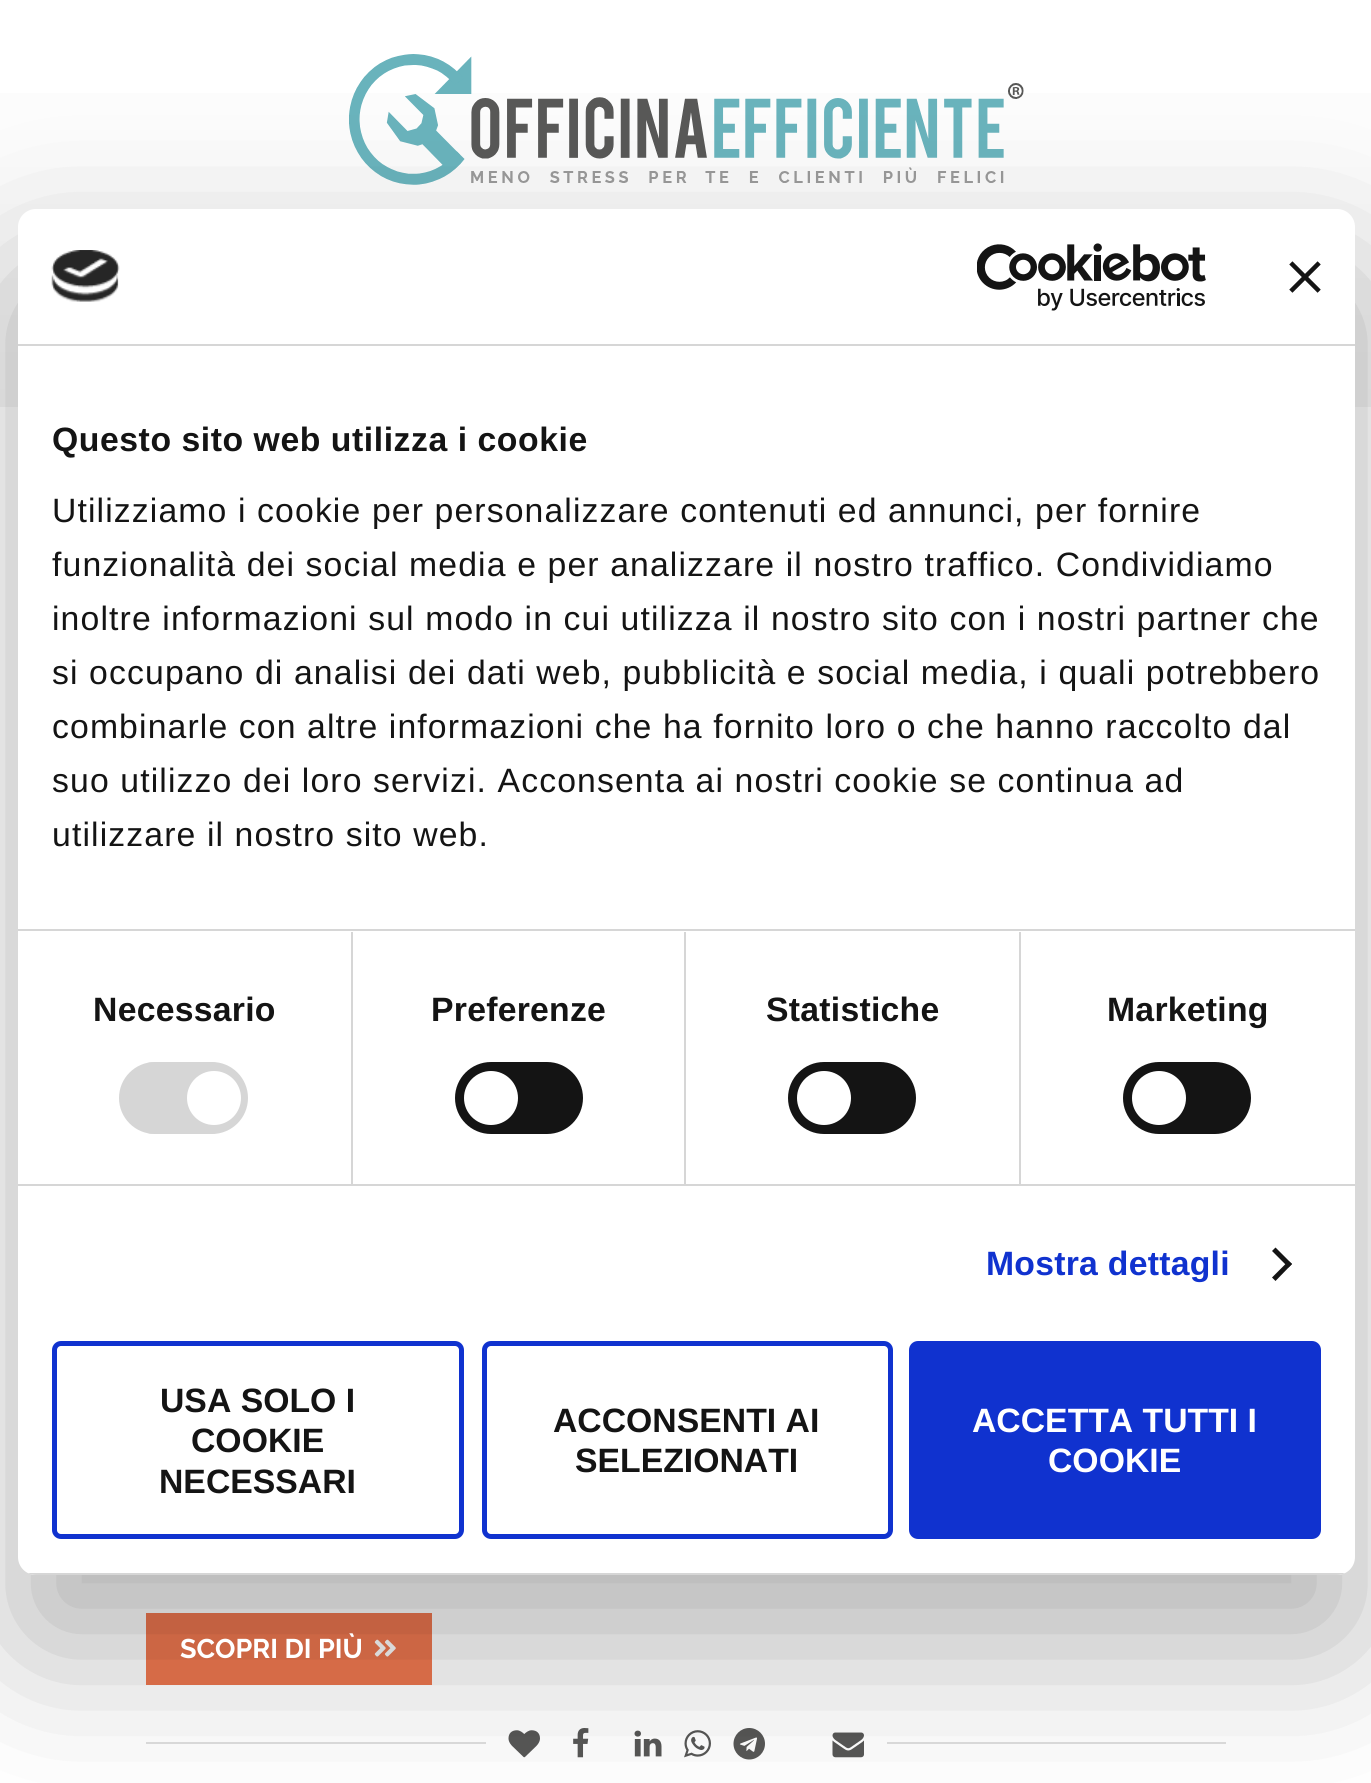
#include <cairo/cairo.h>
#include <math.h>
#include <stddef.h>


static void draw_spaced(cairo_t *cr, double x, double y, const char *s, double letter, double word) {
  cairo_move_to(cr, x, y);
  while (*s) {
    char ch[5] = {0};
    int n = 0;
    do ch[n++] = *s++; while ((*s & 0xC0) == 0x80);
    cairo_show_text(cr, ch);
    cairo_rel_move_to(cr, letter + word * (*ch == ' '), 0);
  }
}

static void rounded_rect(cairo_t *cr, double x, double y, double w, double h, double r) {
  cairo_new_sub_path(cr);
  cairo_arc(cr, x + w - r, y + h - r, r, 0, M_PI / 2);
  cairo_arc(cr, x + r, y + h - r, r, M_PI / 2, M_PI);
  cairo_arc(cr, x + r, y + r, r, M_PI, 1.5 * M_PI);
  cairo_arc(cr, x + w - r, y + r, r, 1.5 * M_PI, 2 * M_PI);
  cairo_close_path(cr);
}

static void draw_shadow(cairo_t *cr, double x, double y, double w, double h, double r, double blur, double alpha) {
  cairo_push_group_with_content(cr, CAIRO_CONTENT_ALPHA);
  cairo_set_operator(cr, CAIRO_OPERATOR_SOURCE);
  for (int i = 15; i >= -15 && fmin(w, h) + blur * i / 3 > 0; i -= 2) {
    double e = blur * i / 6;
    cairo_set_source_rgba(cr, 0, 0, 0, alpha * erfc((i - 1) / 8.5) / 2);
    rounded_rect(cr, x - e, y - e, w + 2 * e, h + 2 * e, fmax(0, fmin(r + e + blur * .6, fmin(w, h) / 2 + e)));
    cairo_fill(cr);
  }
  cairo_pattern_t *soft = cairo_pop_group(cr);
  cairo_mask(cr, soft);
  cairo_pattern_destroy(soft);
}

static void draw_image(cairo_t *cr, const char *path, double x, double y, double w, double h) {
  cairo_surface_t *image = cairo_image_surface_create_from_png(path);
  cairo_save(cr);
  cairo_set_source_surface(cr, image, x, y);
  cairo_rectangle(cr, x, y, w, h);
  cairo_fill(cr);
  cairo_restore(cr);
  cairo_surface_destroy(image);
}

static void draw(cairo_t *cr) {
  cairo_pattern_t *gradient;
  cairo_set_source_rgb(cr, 1, 1, 1);
  cairo_paint(cr);
  gradient = cairo_pattern_create_linear(686, 0, 686, 407);
  cairo_pattern_add_color_stop_rgba(gradient, 0, 1, 1, 1, 1);
  cairo_pattern_add_color_stop_rgba(gradient, 1, 244 / 255.0, 244 / 255.0, 244 / 255.0, 1);
  cairo_set_source(cr, gradient);
  cairo_pattern_destroy(gradient);
  cairo_rectangle(cr, 0, 93, 1371, 314);
  cairo_fill(cr);
  draw_image(cr, "images/4.png", 349, 54, 675, 131);
  cairo_set_source_rgb(cr, 240 / 255.0, 120 / 255.0, 80 / 255.0);
  cairo_rectangle(cr, 146, 1613, 286, 72);
  cairo_fill(cr);
  draw_image(cr, "images/5.png", 374, 1639, 22, 18);
  cairo_set_source_rgb(cr, 222 / 255.0, 222 / 255.0, 222 / 255.0);
  cairo_rectangle(cr, 146, 1742, 1080, 2);
  cairo_fill(cr);
  cairo_set_source_rgb(cr, 1, 1, 1);
  cairo_rectangle(cr, 486, 1742, 401, 2);
  cairo_fill(cr);
  draw_image(cr, "images/6.png", 508, 1730, 32, 28);
  draw_image(cr, "images/7.png", 573, 1728, 16, 30);
  draw_image(cr, "images/8.png", 634, 1730, 28, 27);
  draw_image(cr, "images/9.png", 684, 1730, 27, 28);
  draw_image(cr, "images/10.png", 733, 1728, 32, 32);
  draw_image(cr, "images/11.png", 832, 1732, 32, 26);
  cairo_set_source_rgb(cr, 0, 0, 0);
  draw_shadow(cr, 18, 281, 1337, 1366, 18, 76.5, 0.3);
  cairo_set_source_rgb(cr, 1, 1, 1);
  rounded_rect(cr, 18, 209, 1337, 1366, 18);
  cairo_fill(cr);
  cairo_set_source_rgb(cr, 214 / 255.0, 214 / 255.0, 214 / 255.0);
  cairo_rectangle(cr, 18, 344, 1337, 2);
  cairo_fill(cr);
  draw_image(cr, "images/1.png", 51, 250, 69, 52);
  draw_image(cr, "images/2.png", 977, 243, 229, 68);
  draw_image(cr, "images/3.png", 1289, 261, 32, 32);
  cairo_rectangle(cr, 18, 929, 1337, 2);
  cairo_fill(cr);
  cairo_rectangle(cr, 18, 1184, 1337, 2);
  cairo_fill(cr);
  cairo_rectangle(cr, 351, 932, 2, 252);
  cairo_fill(cr);
  cairo_set_source_rgb(cr, 230 / 255.0, 230 / 255.0, 230 / 255.0);
  rounded_rect(cr, 146, 1062, 72, 72, 5);
  cairo_fill(cr);
  cairo_set_source_rgb(cr, 214 / 255.0, 214 / 255.0, 214 / 255.0);
  rounded_rect(cr, 119, 1062, 129, 72, 36);
  cairo_fill(cr);
  cairo_set_source_rgb(cr, 1, 1, 1);
  cairo_arc(cr, 214, 1098, 27, 0, 2 * M_PI);
  cairo_fill(cr);
  cairo_set_source_rgb(cr, 214 / 255.0, 214 / 255.0, 214 / 255.0);
  cairo_rectangle(cr, 684, 932, 2, 252);
  cairo_fill(cr);
  cairo_set_source_rgb(cr, 20 / 255.0, 20 / 255.0, 20 / 255.0);
  rounded_rect(cr, 455, 1062, 128, 72, 36);
  cairo_fill(cr);
  cairo_set_source_rgb(cr, 1, 1, 1);
  cairo_arc(cr, 491, 1098, 27, 0, 2 * M_PI);
  cairo_fill(cr);
  cairo_set_source_rgb(cr, 214 / 255.0, 214 / 255.0, 214 / 255.0);
  cairo_rectangle(cr, 1019, 932, 2, 252);
  cairo_fill(cr);
  cairo_set_source_rgb(cr, 20 / 255.0, 20 / 255.0, 20 / 255.0);
  rounded_rect(cr, 788, 1062, 128, 72, 36);
  cairo_fill(cr);
  cairo_set_source_rgb(cr, 1, 1, 1);
  cairo_arc(cr, 824, 1098, 27, 0, 2 * M_PI);
  cairo_fill(cr);
  cairo_set_source_rgb(cr, 20 / 255.0, 20 / 255.0, 20 / 255.0);
  rounded_rect(cr, 1123, 1062, 128, 72, 36);
  cairo_fill(cr);
  cairo_set_source_rgb(cr, 1, 1, 1);
  cairo_arc(cr, 1159, 1098, 27, 0, 2 * M_PI);
  cairo_fill(cr);
  cairo_set_source_rgb(cr, 20 / 255.0, 20 / 255.0, 20 / 255.0);
  cairo_new_path(cr);
  cairo_move_to(cr, 1275.5, 1247.5);
  cairo_line_to(cr, 1292, 1264);
  cairo_line_to(cr, 1288.5, 1267.5);
  cairo_line_to(cr, 1272, 1251);
  cairo_close_path(cr);
  cairo_fill(cr);
  cairo_new_path(cr);
  cairo_move_to(cr, 1288.5, 1261);
  cairo_line_to(cr, 1292, 1264);
  cairo_line_to(cr, 1275.5, 1281);
  cairo_line_to(cr, 1272, 1277.5);
  cairo_close_path(cr);
  cairo_fill(cr);
  cairo_save(cr);
  rounded_rect(cr, 18, 209, 1337, 1366, 18);
  cairo_clip(cr);
  cairo_set_source_rgb(cr, 214 / 255.0, 214 / 255.0, 214 / 255.0);
  cairo_rectangle(cr, 28, 1573, 1317, 2);
  cairo_fill(cr);
  cairo_restore(cr);
  rounded_rect(cr, 54.5, 1343.5, 407, 193, 6.5);
  cairo_set_source_rgb(cr, 16 / 255.0, 50 / 255.0, 207 / 255.0);
  cairo_set_line_width(cr, 5);
  cairo_stroke(cr);
  rounded_rect(cr, 484.5, 1343.5, 406, 193, 6.5);
  cairo_stroke(cr);
  rounded_rect(cr, 911.5, 1343.5, 407, 193, 6.5);
  cairo_fill_preserve(cr);
  cairo_stroke(cr);
  cairo_select_font_face(cr, "Liberation Sans", CAIRO_FONT_SLANT_NORMAL, CAIRO_FONT_WEIGHT_BOLD);
  cairo_set_font_size(cr, 33.75);
  cairo_set_source_rgb(cr, 20 / 255.0, 20 / 255.0, 20 / 255.0);
  draw_spaced(cr, 52, 451, "Questo sito web utilizza i cookie", 0.55, 0);
  cairo_select_font_face(cr, "Liberation Sans", CAIRO_FONT_SLANT_NORMAL, CAIRO_FONT_WEIGHT_NORMAL);
  draw_spaced(cr, 52, 522, "Utilizziamo i cookie per personalizzare contenuti ed annunci, per fornire", 1.12, 0);
  draw_spaced(cr, 52, 576, "funzionalità dei social media e per analizzare il nostro traffico. Condividiamo", 1.12, 0);
  draw_spaced(cr, 52, 630, "inoltre informazioni sul modo in cui utilizza il nostro sito con i nostri partner che", 1.12, 0);
  draw_spaced(cr, 52, 684, "si occupano di analisi dei dati web, pubblicità e social media, i quali potrebbero", 1.12, 0);
  draw_spaced(cr, 52, 738, "combinarle con altre informazioni che ha fornito loro o che hanno raccolto dal", 1.12, 0);
  draw_spaced(cr, 52, 792, "suo utilizzo dei loro servizi. Acconsenta ai nostri cookie se continua ad", 1.12, 0);
  draw_spaced(cr, 52, 846, "utilizzare il nostro sito web.", 1.12, 0);
  cairo_select_font_face(cr, "Liberation Sans", CAIRO_FONT_SLANT_NORMAL, CAIRO_FONT_WEIGHT_BOLD);
  draw_spaced(cr, 93, 1021, "Necessario", 0.25, 0);
  draw_spaced(cr, 431, 1021, "Preferenze", 0.25, 0);
  draw_spaced(cr, 766, 1021, "Statistiche", 0.25, 0);
  draw_spaced(cr, 1107, 1021, "Marketing", 0.25, 0);
  cairo_set_source_rgb(cr, 16 / 255.0, 50 / 255.0, 207 / 255.0);
  draw_spaced(cr, 986, 1275, "Mostra dettagli", 0.25, 0);
  cairo_set_source_rgb(cr, 20 / 255.0, 20 / 255.0, 20 / 255.0);
  cairo_move_to(cr, 160, 1412);
  cairo_show_text(cr, "USA SOLO I");
  cairo_move_to(cr, 191, 1452);
  cairo_show_text(cr, "COOKIE");
  cairo_move_to(cr, 159, 1493);
  cairo_show_text(cr, "NECESSARI");
  cairo_move_to(cr, 553, 1432);
  cairo_show_text(cr, "ACCONSENTI AI");
  cairo_move_to(cr, 575, 1472);
  cairo_show_text(cr, "SELEZIONATI");
  cairo_set_source_rgb(cr, 1, 1, 1);
  cairo_move_to(cr, 972, 1432);
  cairo_show_text(cr, "ACCETTA TUTTI I");
  cairo_move_to(cr, 1048, 1472);
  cairo_show_text(cr, "COOKIE");
  cairo_select_font_face(cr, "Raleway", CAIRO_FONT_SLANT_NORMAL, CAIRO_FONT_WEIGHT_BOLD);
  cairo_set_font_size(cr, 27);
  cairo_move_to(cr, 180, 1658);
  cairo_show_text(cr, "SCOPRI DI PIÙ");
}

int main(void) {
  cairo_surface_t *surface = cairo_image_surface_create(CAIRO_FORMAT_RGB24, 1371, 1783);
  cairo_t *cr = cairo_create(surface);
  cairo_font_options_t *options = cairo_font_options_create();
  cairo_font_options_set_hint_metrics(options, CAIRO_HINT_METRICS_OFF);
  cairo_font_options_set_hint_style(options, CAIRO_HINT_STYLE_NONE);
  cairo_set_font_options(cr, options);
  cairo_set_miter_limit(cr, 4);
  draw(cr);
  cairo_surface_write_to_png(surface, "out.png");
  cairo_font_options_destroy(options);
  cairo_destroy(cr);
  cairo_surface_destroy(surface);
  return 0;
}
